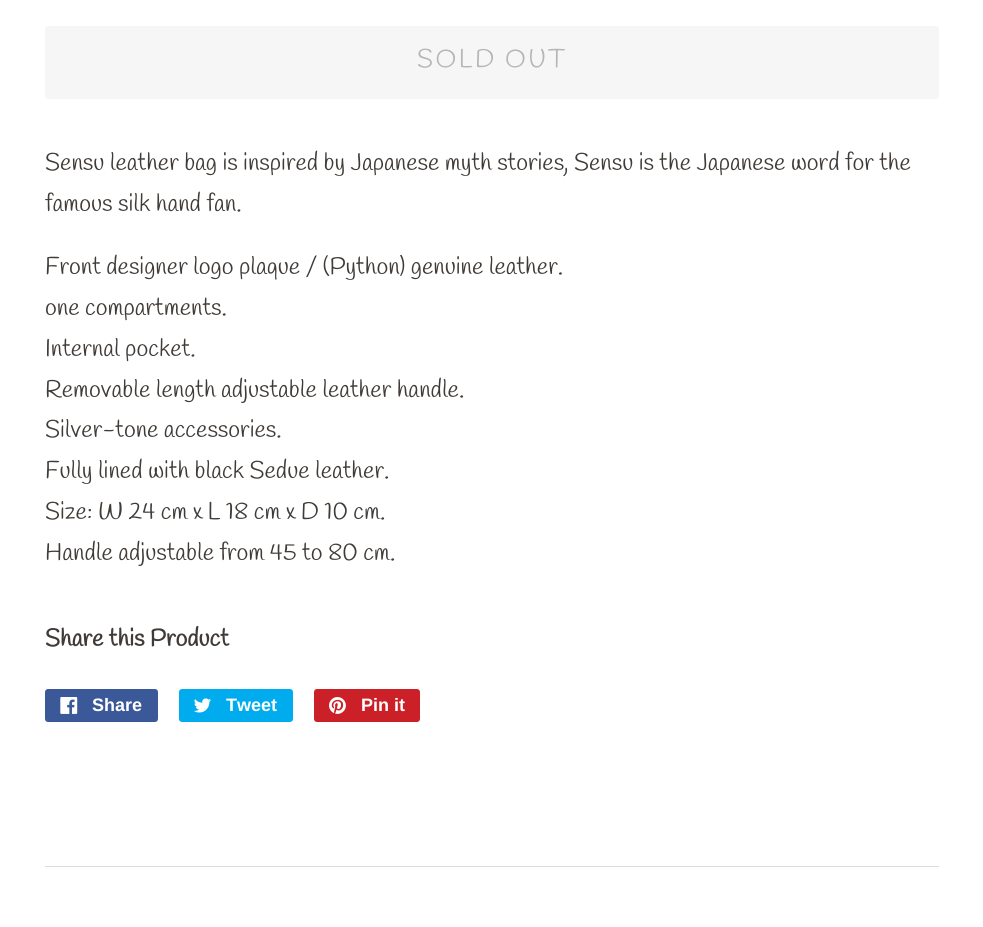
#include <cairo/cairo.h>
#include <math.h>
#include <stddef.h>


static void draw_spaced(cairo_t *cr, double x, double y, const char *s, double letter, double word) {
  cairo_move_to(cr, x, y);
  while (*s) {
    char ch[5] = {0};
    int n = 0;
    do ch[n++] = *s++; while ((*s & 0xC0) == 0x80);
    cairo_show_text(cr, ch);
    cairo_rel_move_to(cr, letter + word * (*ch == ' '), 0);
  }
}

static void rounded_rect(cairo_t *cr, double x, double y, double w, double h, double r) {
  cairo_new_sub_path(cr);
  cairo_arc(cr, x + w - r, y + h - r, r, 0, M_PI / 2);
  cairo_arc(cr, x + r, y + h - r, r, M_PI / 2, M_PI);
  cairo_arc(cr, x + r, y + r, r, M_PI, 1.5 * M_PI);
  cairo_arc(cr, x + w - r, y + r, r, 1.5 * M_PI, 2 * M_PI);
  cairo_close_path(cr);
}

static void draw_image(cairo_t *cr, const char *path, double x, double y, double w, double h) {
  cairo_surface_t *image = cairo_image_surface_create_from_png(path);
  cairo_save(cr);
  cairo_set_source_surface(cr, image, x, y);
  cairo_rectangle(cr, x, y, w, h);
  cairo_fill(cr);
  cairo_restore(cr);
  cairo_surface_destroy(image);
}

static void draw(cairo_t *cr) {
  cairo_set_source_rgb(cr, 1, 1, 1);
  cairo_paint(cr);
  cairo_set_source_rgb(cr, 246 / 255.0, 246 / 255.0, 246 / 255.0);
  rounded_rect(cr, 45, 26, 894, 73, 3);
  cairo_fill(cr);
  cairo_set_source_rgb(cr, 59 / 255.0, 89 / 255.0, 152 / 255.0);
  rounded_rect(cr, 45, 689, 113, 33, 3);
  cairo_fill(cr);
  draw_image(cr, "images/1.png", 60, 697, 18, 17);
  cairo_set_source_rgb(cr, 0, 172 / 255.0, 237 / 255.0);
  rounded_rect(cr, 179, 689, 114, 33, 3);
  cairo_fill(cr);
  draw_image(cr, "images/2.png", 194, 698, 17, 15);
  cairo_set_source_rgb(cr, 203 / 255.0, 32 / 255.0, 39 / 255.0);
  rounded_rect(cr, 314, 689, 106, 33, 3);
  cairo_fill(cr);
  draw_image(cr, "images/3.png", 329, 697, 17, 17);
  cairo_set_source_rgb(cr, 221 / 255.0, 221 / 255.0, 221 / 255.0);
  cairo_rectangle(cr, 45, 866, 894, 1);
  cairo_fill(cr);
  cairo_select_font_face(cr, "Handlee", CAIRO_FONT_SLANT_NORMAL, CAIRO_FONT_WEIGHT_NORMAL);
  cairo_set_font_size(cr, 25.5);
  cairo_set_source_rgb(cr, 182 / 255.0, 182 / 255.0, 182 / 255.0);
  draw_spaced(cr, 417, 67, "SOLD OUT", 2.5, 0);
  cairo_set_font_size(cr, 24);
  cairo_set_source_rgb(cr, 64 / 255.0, 59 / 255.0, 55 / 255.0);
  cairo_move_to(cr, 45, 170);
  cairo_show_text(cr, "Sensu leather bag is inspired by Japanese myth stories, Sensu is the Japanese word for the");
  cairo_move_to(cr, 45, 211);
  cairo_show_text(cr, "famous silk hand fan.");
  cairo_move_to(cr, 45, 274);
  cairo_show_text(cr, "Front designer logo plaque / (Python) genuine leather.");
  cairo_move_to(cr, 45, 315);
  cairo_show_text(cr, "one compartments.");
  cairo_move_to(cr, 45, 356);
  cairo_show_text(cr, "Internal pocket.");
  cairo_move_to(cr, 45, 397);
  cairo_show_text(cr, "Removable length adjustable leather handle.");
  cairo_move_to(cr, 45, 437);
  cairo_show_text(cr, "Silver-tone accessories.");
  cairo_move_to(cr, 45, 478);
  cairo_show_text(cr, "Fully lined with black Sedue leather.");
  cairo_move_to(cr, 45, 519);
  cairo_show_text(cr, "Size: W 24 cm x L 18 cm x D 10 cm.");
  cairo_move_to(cr, 45, 560);
  cairo_show_text(cr, "Handle adjustable from 45 to 80 cm.");
  cairo_select_font_face(cr, "Handlee", CAIRO_FONT_SLANT_NORMAL, CAIRO_FONT_WEIGHT_BOLD);
  cairo_move_to(cr, 45, 646);
  cairo_show_text(cr, "Share this Product");
  cairo_select_font_face(cr, "Liberation Sans", CAIRO_FONT_SLANT_NORMAL, CAIRO_FONT_WEIGHT_BOLD);
  cairo_set_font_size(cr, 18);
  cairo_set_source_rgb(cr, 1, 1, 1);
  cairo_move_to(cr, 92, 711);
  cairo_show_text(cr, "Share");
  cairo_move_to(cr, 226, 711);
  cairo_show_text(cr, "Tweet");
  cairo_move_to(cr, 361, 711);
  cairo_show_text(cr, "Pin it");
}

int main(void) {
  cairo_surface_t *surface = cairo_image_surface_create(CAIRO_FORMAT_RGB24, 983, 927);
  cairo_t *cr = cairo_create(surface);
  cairo_font_options_t *options = cairo_font_options_create();
  cairo_font_options_set_hint_metrics(options, CAIRO_HINT_METRICS_OFF);
  cairo_font_options_set_hint_style(options, CAIRO_HINT_STYLE_NONE);
  cairo_set_font_options(cr, options);
  cairo_set_miter_limit(cr, 4);
  draw(cr);
  cairo_surface_write_to_png(surface, "out.png");
  cairo_font_options_destroy(options);
  cairo_destroy(cr);
  cairo_surface_destroy(surface);
  return 0;
}
